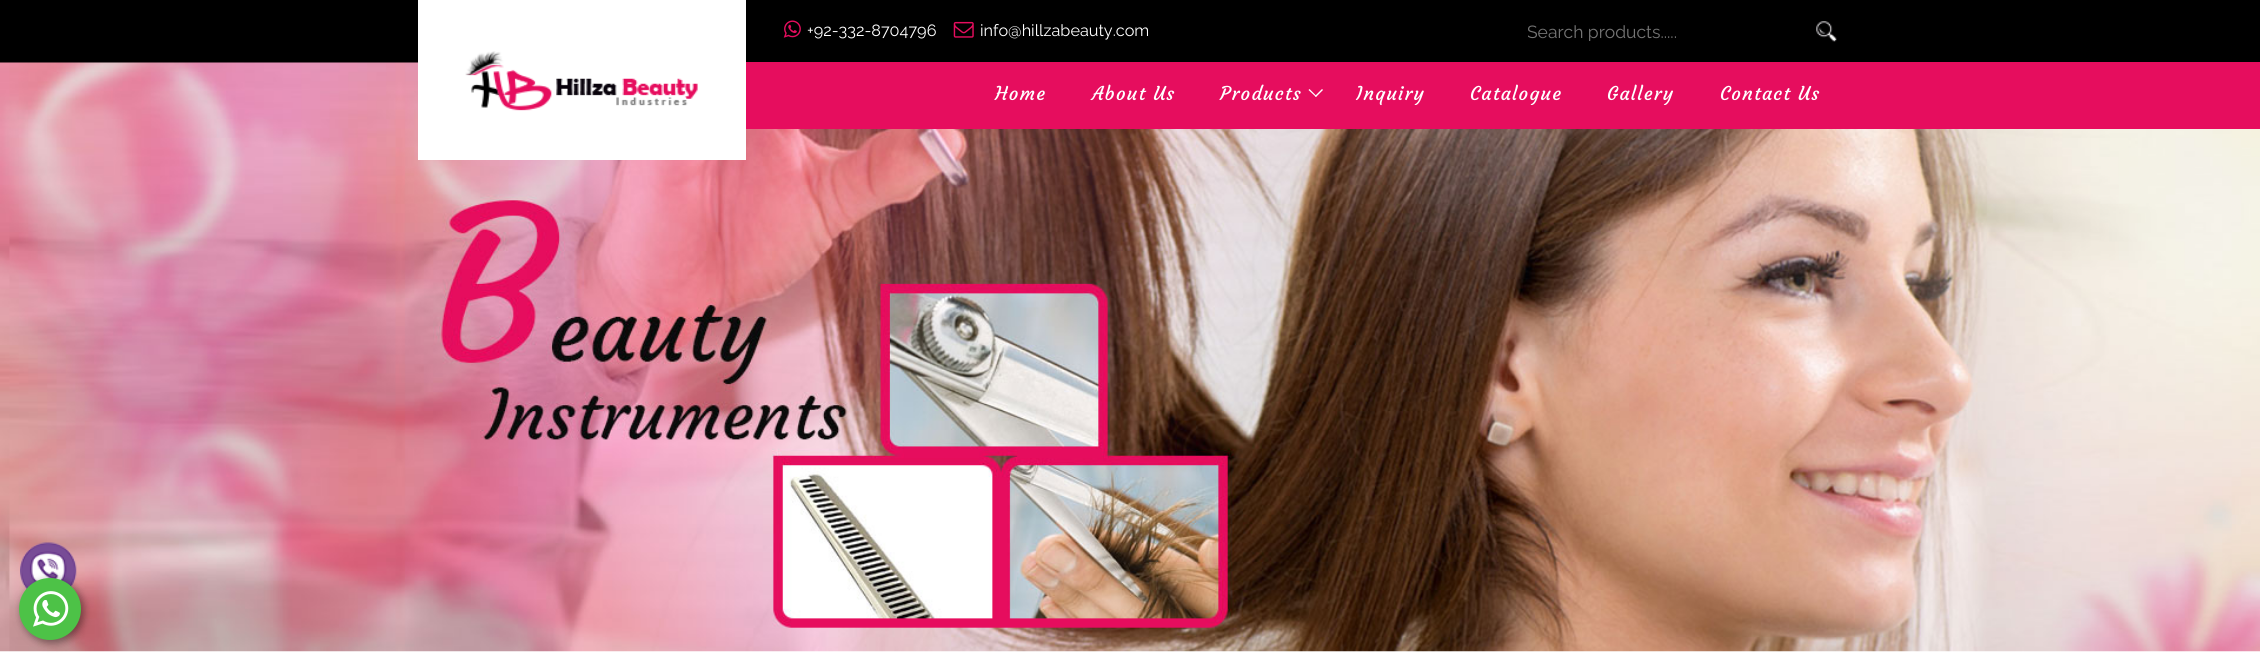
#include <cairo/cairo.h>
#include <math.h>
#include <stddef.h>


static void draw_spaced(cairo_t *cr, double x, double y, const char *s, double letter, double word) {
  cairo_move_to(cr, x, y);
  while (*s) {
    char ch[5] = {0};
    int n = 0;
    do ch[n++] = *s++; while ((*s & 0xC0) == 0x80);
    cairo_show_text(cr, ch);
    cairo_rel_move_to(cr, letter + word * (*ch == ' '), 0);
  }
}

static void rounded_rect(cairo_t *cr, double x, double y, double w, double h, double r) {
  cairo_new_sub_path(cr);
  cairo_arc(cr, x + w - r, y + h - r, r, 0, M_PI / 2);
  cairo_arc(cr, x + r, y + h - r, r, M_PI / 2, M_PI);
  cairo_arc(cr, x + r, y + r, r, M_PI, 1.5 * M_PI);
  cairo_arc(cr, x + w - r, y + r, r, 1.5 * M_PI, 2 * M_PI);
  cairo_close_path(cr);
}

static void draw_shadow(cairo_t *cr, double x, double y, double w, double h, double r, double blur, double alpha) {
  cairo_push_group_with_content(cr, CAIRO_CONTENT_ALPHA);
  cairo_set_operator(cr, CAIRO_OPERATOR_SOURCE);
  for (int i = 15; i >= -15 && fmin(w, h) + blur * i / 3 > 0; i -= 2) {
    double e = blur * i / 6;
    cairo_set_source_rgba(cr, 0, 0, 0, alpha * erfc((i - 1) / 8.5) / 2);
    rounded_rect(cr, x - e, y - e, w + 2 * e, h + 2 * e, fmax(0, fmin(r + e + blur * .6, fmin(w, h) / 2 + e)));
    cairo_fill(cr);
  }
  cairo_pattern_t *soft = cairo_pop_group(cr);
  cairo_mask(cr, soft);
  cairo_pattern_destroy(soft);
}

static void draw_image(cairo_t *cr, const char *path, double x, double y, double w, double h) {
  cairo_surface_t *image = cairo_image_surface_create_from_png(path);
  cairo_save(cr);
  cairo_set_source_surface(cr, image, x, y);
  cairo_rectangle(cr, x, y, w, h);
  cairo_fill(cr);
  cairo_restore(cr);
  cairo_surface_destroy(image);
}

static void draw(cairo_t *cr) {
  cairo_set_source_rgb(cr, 1, 1, 1);
  cairo_paint(cr);
  cairo_set_source_rgb(cr, 0, 0, 0);
  cairo_rectangle(cr, 0, 0, 2260, 63);
  cairo_fill(cr);
  draw_image(cr, "images/1.png", 783, 20, 18, 18);
  draw_image(cr, "images/2.png", 953, 21, 21, 17);
  draw_image(cr, "images/3.png", 1816, 21, 21, 21);
  draw_image(cr, "images/4.png", 0, 62, 2260, 590);
  cairo_set_source_rgb(cr, 230 / 255.0, 13 / 255.0, 94 / 255.0);
  cairo_rectangle(cr, 746, 62, 1514, 67);
  cairo_fill(cr);
  cairo_set_source_rgb(cr, 1, 1, 1);
  cairo_rectangle(cr, 418, 0, 328, 160);
  cairo_fill(cr);
  draw_image(cr, "images/5.png", 465, 51, 233, 60);
  cairo_new_path(cr);
  cairo_move_to(cr, 1322, 89);
  cairo_line_to(cr, 1323, 90);
  cairo_line_to(cr, 1316, 97);
  cairo_line_to(cr, 1315, 96);
  cairo_close_path(cr);
  cairo_fill(cr);
  cairo_new_path(cr);
  cairo_move_to(cr, 1309.5, 89);
  cairo_line_to(cr, 1316.5, 96);
  cairo_line_to(cr, 1316, 97);
  cairo_line_to(cr, 1308.5, 90);
  cairo_close_path(cr);
  cairo_fill(cr);
  draw_image(cr, "images/6.png", 20, 542, 57, 48);
  cairo_set_source_rgb(cr, 0, 0, 0);
  draw_shadow(cr, 21, 580, 63, 63, 31.5, 4, 0.4);
  cairo_set_source_rgb(cr, 77 / 255.0, 194 / 255.0, 71 / 255.0);
  cairo_arc(cr, 50, 609, 31, 0, 2 * M_PI);
  cairo_fill(cr);
  draw_image(cr, "images/7.png", 33, 591, 36, 36);
  cairo_select_font_face(cr, "Raleway", CAIRO_FONT_SLANT_NORMAL, CAIRO_FONT_WEIGHT_NORMAL);
  cairo_set_font_size(cr, 16.25);
  cairo_set_source_rgb(cr, 1, 1, 1);
  cairo_move_to(cr, 807, 36);
  cairo_show_text(cr, "+92-332-8704796");
  cairo_move_to(cr, 980, 36);
  cairo_show_text(cr, "info@hillzabeauty.com");
  cairo_save(cr);
  cairo_rectangle(cr, 1528, 21, 302, 20);
  cairo_clip(cr);
  cairo_set_font_size(cr, 17.5);
  cairo_set_source_rgb(cr, 117 / 255.0, 117 / 255.0, 117 / 255.0);
  cairo_move_to(cr, 1527, 38);
  cairo_show_text(cr, "Search products.....");
  cairo_restore(cr);
  cairo_select_font_face(cr, "Courgette", CAIRO_FONT_SLANT_NORMAL, CAIRO_FONT_WEIGHT_NORMAL);
  cairo_set_font_size(cr, 18.75);
  draw_spaced(cr, 995, 100, "Home", 1.25, 0);
  draw_spaced(cr, 1092, 100, "About Us", 1.25, 0);
  draw_spaced(cr, 1220, 100, "Products", 1.25, 0);
  draw_spaced(cr, 1356, 100, "Inquiry", 1.25, 0);
  draw_spaced(cr, 1470, 100, "Catalogue", 1.25, 0);
  draw_spaced(cr, 1607, 100, "Gallery", 1.25, 0);
  draw_spaced(cr, 1720, 100, "Contact Us", 1.25, 0);
}

int main(void) {
  cairo_surface_t *surface = cairo_image_surface_create(CAIRO_FORMAT_RGB24, 2260, 664);
  cairo_t *cr = cairo_create(surface);
  cairo_font_options_t *options = cairo_font_options_create();
  cairo_font_options_set_hint_metrics(options, CAIRO_HINT_METRICS_OFF);
  cairo_font_options_set_hint_style(options, CAIRO_HINT_STYLE_NONE);
  cairo_set_font_options(cr, options);
  cairo_set_miter_limit(cr, 4);
  draw(cr);
  cairo_surface_write_to_png(surface, "out.png");
  cairo_font_options_destroy(options);
  cairo_destroy(cr);
  cairo_surface_destroy(surface);
  return 0;
}
